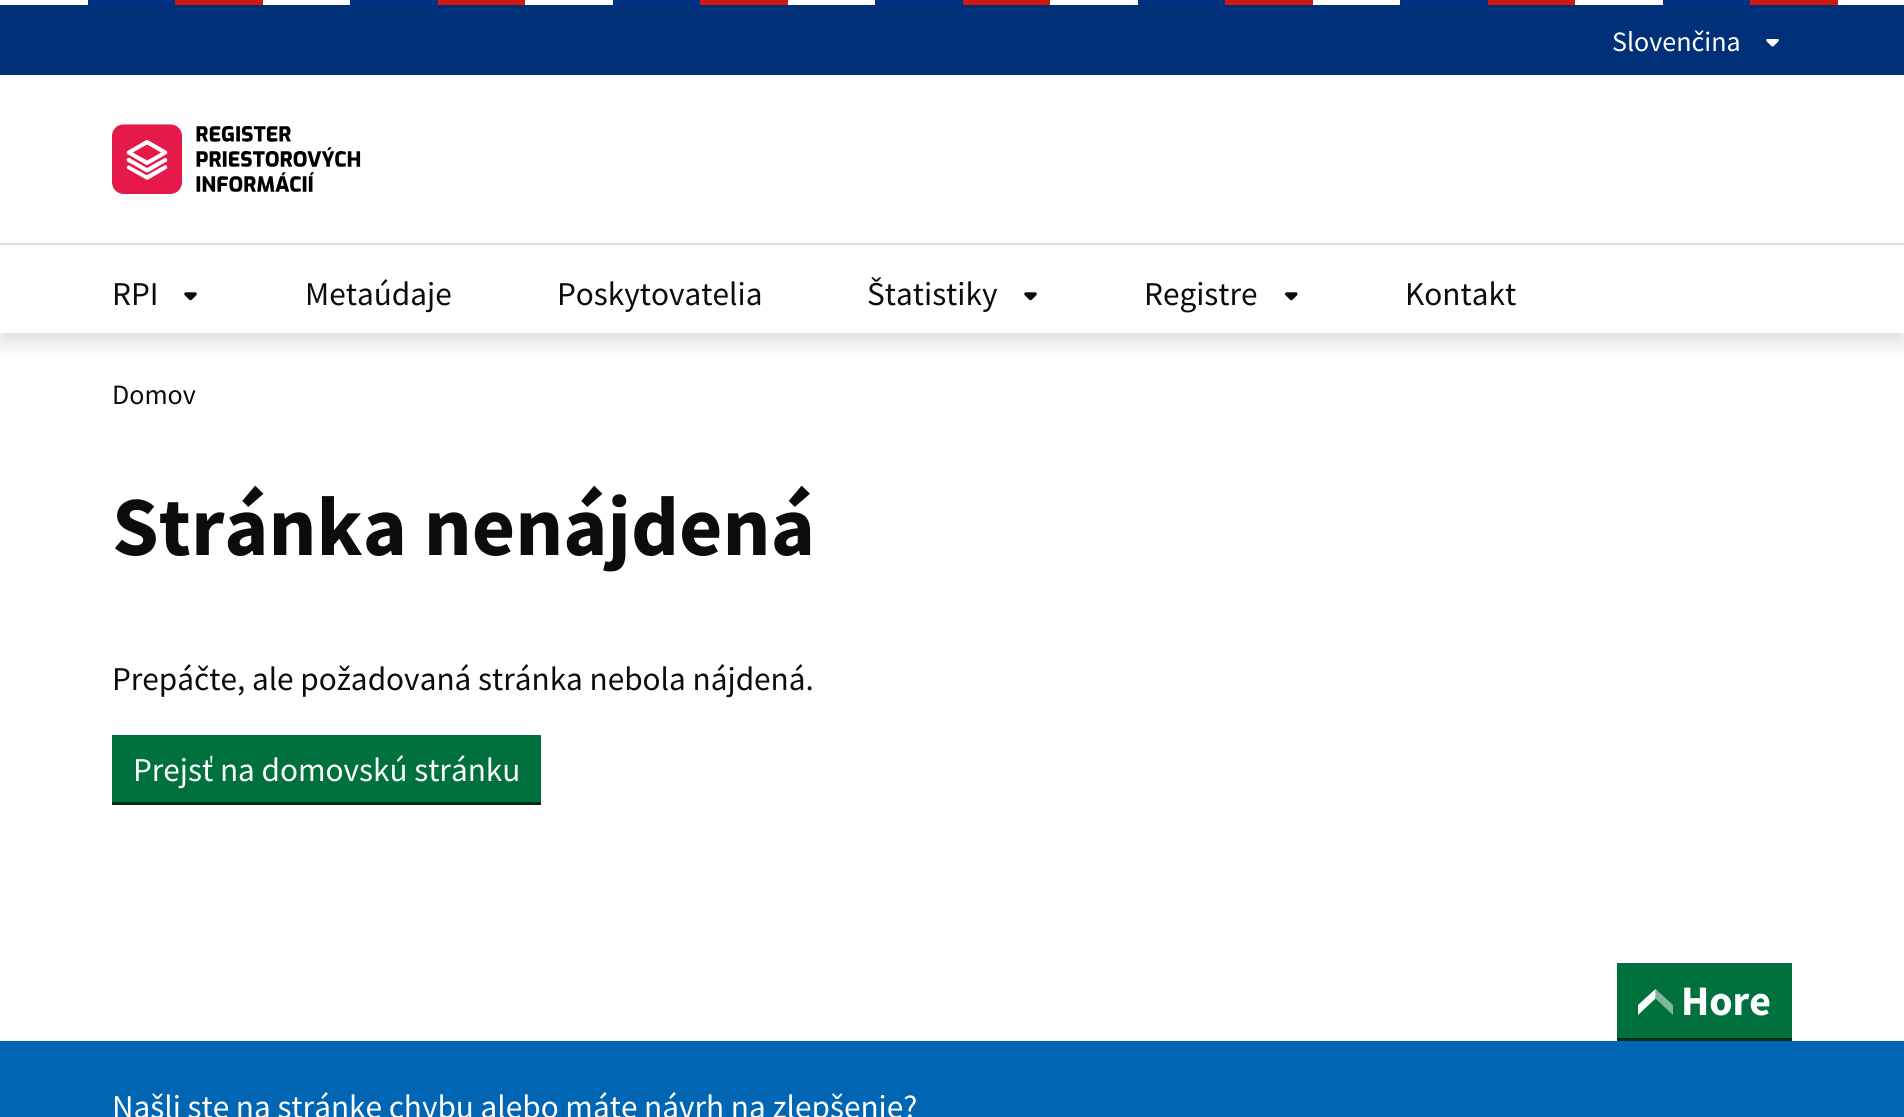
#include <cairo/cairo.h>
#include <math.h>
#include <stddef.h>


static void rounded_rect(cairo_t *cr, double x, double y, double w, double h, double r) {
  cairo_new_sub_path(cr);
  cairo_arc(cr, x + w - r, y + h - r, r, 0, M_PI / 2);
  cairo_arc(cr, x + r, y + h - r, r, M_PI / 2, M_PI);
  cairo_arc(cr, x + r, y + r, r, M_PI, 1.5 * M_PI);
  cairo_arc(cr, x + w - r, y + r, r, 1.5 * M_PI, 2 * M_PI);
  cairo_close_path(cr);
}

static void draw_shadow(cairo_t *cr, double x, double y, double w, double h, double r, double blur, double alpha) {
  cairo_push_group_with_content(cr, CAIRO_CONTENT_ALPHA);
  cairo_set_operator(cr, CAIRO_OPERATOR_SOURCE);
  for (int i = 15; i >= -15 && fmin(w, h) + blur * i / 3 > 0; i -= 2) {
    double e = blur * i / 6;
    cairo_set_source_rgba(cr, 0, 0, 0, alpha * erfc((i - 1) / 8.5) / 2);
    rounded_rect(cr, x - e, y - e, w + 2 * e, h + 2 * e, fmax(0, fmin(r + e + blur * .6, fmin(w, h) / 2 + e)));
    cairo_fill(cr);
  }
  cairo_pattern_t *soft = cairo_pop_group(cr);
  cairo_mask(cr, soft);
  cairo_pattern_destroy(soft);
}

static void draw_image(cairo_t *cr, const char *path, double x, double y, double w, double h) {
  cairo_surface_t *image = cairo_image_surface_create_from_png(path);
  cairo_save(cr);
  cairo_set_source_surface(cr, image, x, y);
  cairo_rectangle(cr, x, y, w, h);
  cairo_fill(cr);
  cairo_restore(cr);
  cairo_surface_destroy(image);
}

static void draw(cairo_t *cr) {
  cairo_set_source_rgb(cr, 1, 1, 1);
  cairo_paint(cr);
  cairo_save(cr);
  cairo_rectangle(cr, 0, 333, 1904, 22);
  cairo_clip(cr);
  cairo_set_source_rgb(cr, 0, 0, 0);
  draw_shadow(cr, 0, 9, 1904, 332, 0, 13, 0.15);
  cairo_restore(cr);
  draw_image(cr, "images/1.png", 88, 0, 1750, 5);
  cairo_set_source_rgb(cr, 0, 48 / 255.0, 120 / 255.0);
  cairo_rectangle(cr, 0, 5, 1904, 70);
  cairo_fill(cr);
  draw_image(cr, "images/2.png", 1766, 39, 13, 8);
  draw_image(cr, "images/3.png", 112, 124, 249, 70);
  cairo_set_source_rgb(cr, 222 / 255.0, 224 / 255.0, 226 / 255.0);
  cairo_rectangle(cr, 0, 243, 1904, 2);
  cairo_fill(cr);
  cairo_set_source_rgb(cr, 1, 1, 1);
  cairo_rectangle(cr, 0, 332, 1904, 1);
  cairo_fill(cr);
  draw_image(cr, "images/4.png", 184, 292, 13, 9);
  draw_image(cr, "images/4.png", 1024, 292, 13, 9);
  draw_image(cr, "images/5.png", 1285, 292, 13, 9);
  cairo_set_source_rgb(cr, 0, 45 / 255.0, 24 / 255.0);
  cairo_new_path(cr);
  cairo_move_to(cr, 112, 802);
  cairo_line_to(cr, 112, 805);
  cairo_line_to(cr, 541, 805);
  cairo_line_to(cr, 541, 739);
  cairo_line_to(cr, 541, 802);
  cairo_close_path(cr);
  cairo_fill(cr);
  cairo_set_source_rgb(cr, 0, 112 / 255.0, 60 / 255.0);
  cairo_rectangle(cr, 112, 735, 429, 67);
  cairo_fill(cr);
  cairo_set_source_rgb(cr, 0, 45 / 255.0, 24 / 255.0);
  cairo_rectangle(cr, 1617, 1038, 175, 3);
  cairo_fill(cr);
  cairo_set_source_rgb(cr, 0, 112 / 255.0, 60 / 255.0);
  cairo_rectangle(cr, 1617, 963, 175, 75);
  cairo_fill(cr);
  cairo_set_source_rgb(cr, 1, 1, 1);
  cairo_set_fill_rule(cr, CAIRO_FILL_RULE_EVEN_ODD);
  cairo_new_path(cr);
  cairo_move_to(cr, 1655.5, 998.5);
  cairo_line_to(cr, 1638, 1015);
  cairo_line_to(cr, 1638, 1005);
  cairo_line_to(cr, 1655.5, 989);
  cairo_close_path(cr);
  cairo_fill(cr);
  cairo_set_source_rgba(cr, 1, 1, 1, 0.5);
  cairo_new_path(cr);
  cairo_move_to(cr, 1673, 1005);
  cairo_line_to(cr, 1655.5, 989);
  cairo_line_to(cr, 1655.5, 998.5);
  cairo_line_to(cr, 1673, 1015);
  cairo_close_path(cr);
  cairo_fill(cr);
  cairo_set_source_rgb(cr, 0, 101 / 255.0, 179 / 255.0);
  cairo_rectangle(cr, 0, 1041, 1904, 76);
  cairo_fill(cr);
  cairo_select_font_face(cr, "Source Sans Pro", CAIRO_FONT_SLANT_NORMAL, CAIRO_FONT_WEIGHT_NORMAL);
  cairo_set_font_size(cr, 28);
  cairo_set_source_rgb(cr, 1, 1, 1);
  cairo_move_to(cr, 1612, 51);
  cairo_show_text(cr, "Slovenčina");
  cairo_set_font_size(cr, 33.25);
  cairo_set_source_rgb(cr, 11 / 255.0, 12 / 255.0, 12 / 255.0);
  cairo_move_to(cr, 112, 305);
  cairo_show_text(cr, "RPI");
  cairo_move_to(cr, 305, 305);
  cairo_show_text(cr, "Metaúdaje");
  cairo_move_to(cr, 557, 305);
  cairo_show_text(cr, "Poskytovatelia");
  cairo_move_to(cr, 867, 305);
  cairo_show_text(cr, "Štatistiky");
  cairo_move_to(cr, 1144, 305);
  cairo_show_text(cr, "Registre");
  cairo_move_to(cr, 1405, 305);
  cairo_show_text(cr, "Kontakt");
  cairo_set_font_size(cr, 28);
  cairo_move_to(cr, 112, 404);
  cairo_show_text(cr, "Domov");
  cairo_select_font_face(cr, "Source Sans Pro", CAIRO_FONT_SLANT_NORMAL, CAIRO_FONT_WEIGHT_BOLD);
  cairo_set_font_size(cr, 84);
  cairo_move_to(cr, 112, 555);
  cairo_show_text(cr, "Stránka nenájdená");
  cairo_select_font_face(cr, "Source Sans Pro", CAIRO_FONT_SLANT_NORMAL, CAIRO_FONT_WEIGHT_NORMAL);
  cairo_set_font_size(cr, 33.25);
  cairo_move_to(cr, 112, 690);
  cairo_show_text(cr, "Prepáčte, ale požadovaná stránka nebola nájdená.");
  cairo_set_source_rgb(cr, 1, 1, 1);
  cairo_move_to(cr, 133, 781);
  cairo_show_text(cr, "Prejsť na domovskú stránku");
  cairo_select_font_face(cr, "Source Sans Pro", CAIRO_FONT_SLANT_NORMAL, CAIRO_FONT_WEIGHT_BOLD);
  cairo_set_font_size(cr, 42);
  cairo_move_to(cr, 1681, 1015);
  cairo_show_text(cr, "Hore");
  cairo_select_font_face(cr, "Source Sans Pro", CAIRO_FONT_SLANT_NORMAL, CAIRO_FONT_WEIGHT_NORMAL);
  cairo_set_font_size(cr, 33.25);
  cairo_move_to(cr, 112, 1118);
  cairo_show_text(cr, "Našli ste na stránke chybu alebo máte návrh na zlepšenie?");
}

int main(void) {
  cairo_surface_t *surface = cairo_image_surface_create(CAIRO_FORMAT_RGB24, 1904, 1117);
  cairo_t *cr = cairo_create(surface);
  cairo_font_options_t *options = cairo_font_options_create();
  cairo_font_options_set_hint_metrics(options, CAIRO_HINT_METRICS_OFF);
  cairo_font_options_set_hint_style(options, CAIRO_HINT_STYLE_NONE);
  cairo_set_font_options(cr, options);
  cairo_set_miter_limit(cr, 4);
  draw(cr);
  cairo_surface_write_to_png(surface, "out.png");
  cairo_font_options_destroy(options);
  cairo_destroy(cr);
  cairo_surface_destroy(surface);
  return 0;
}
